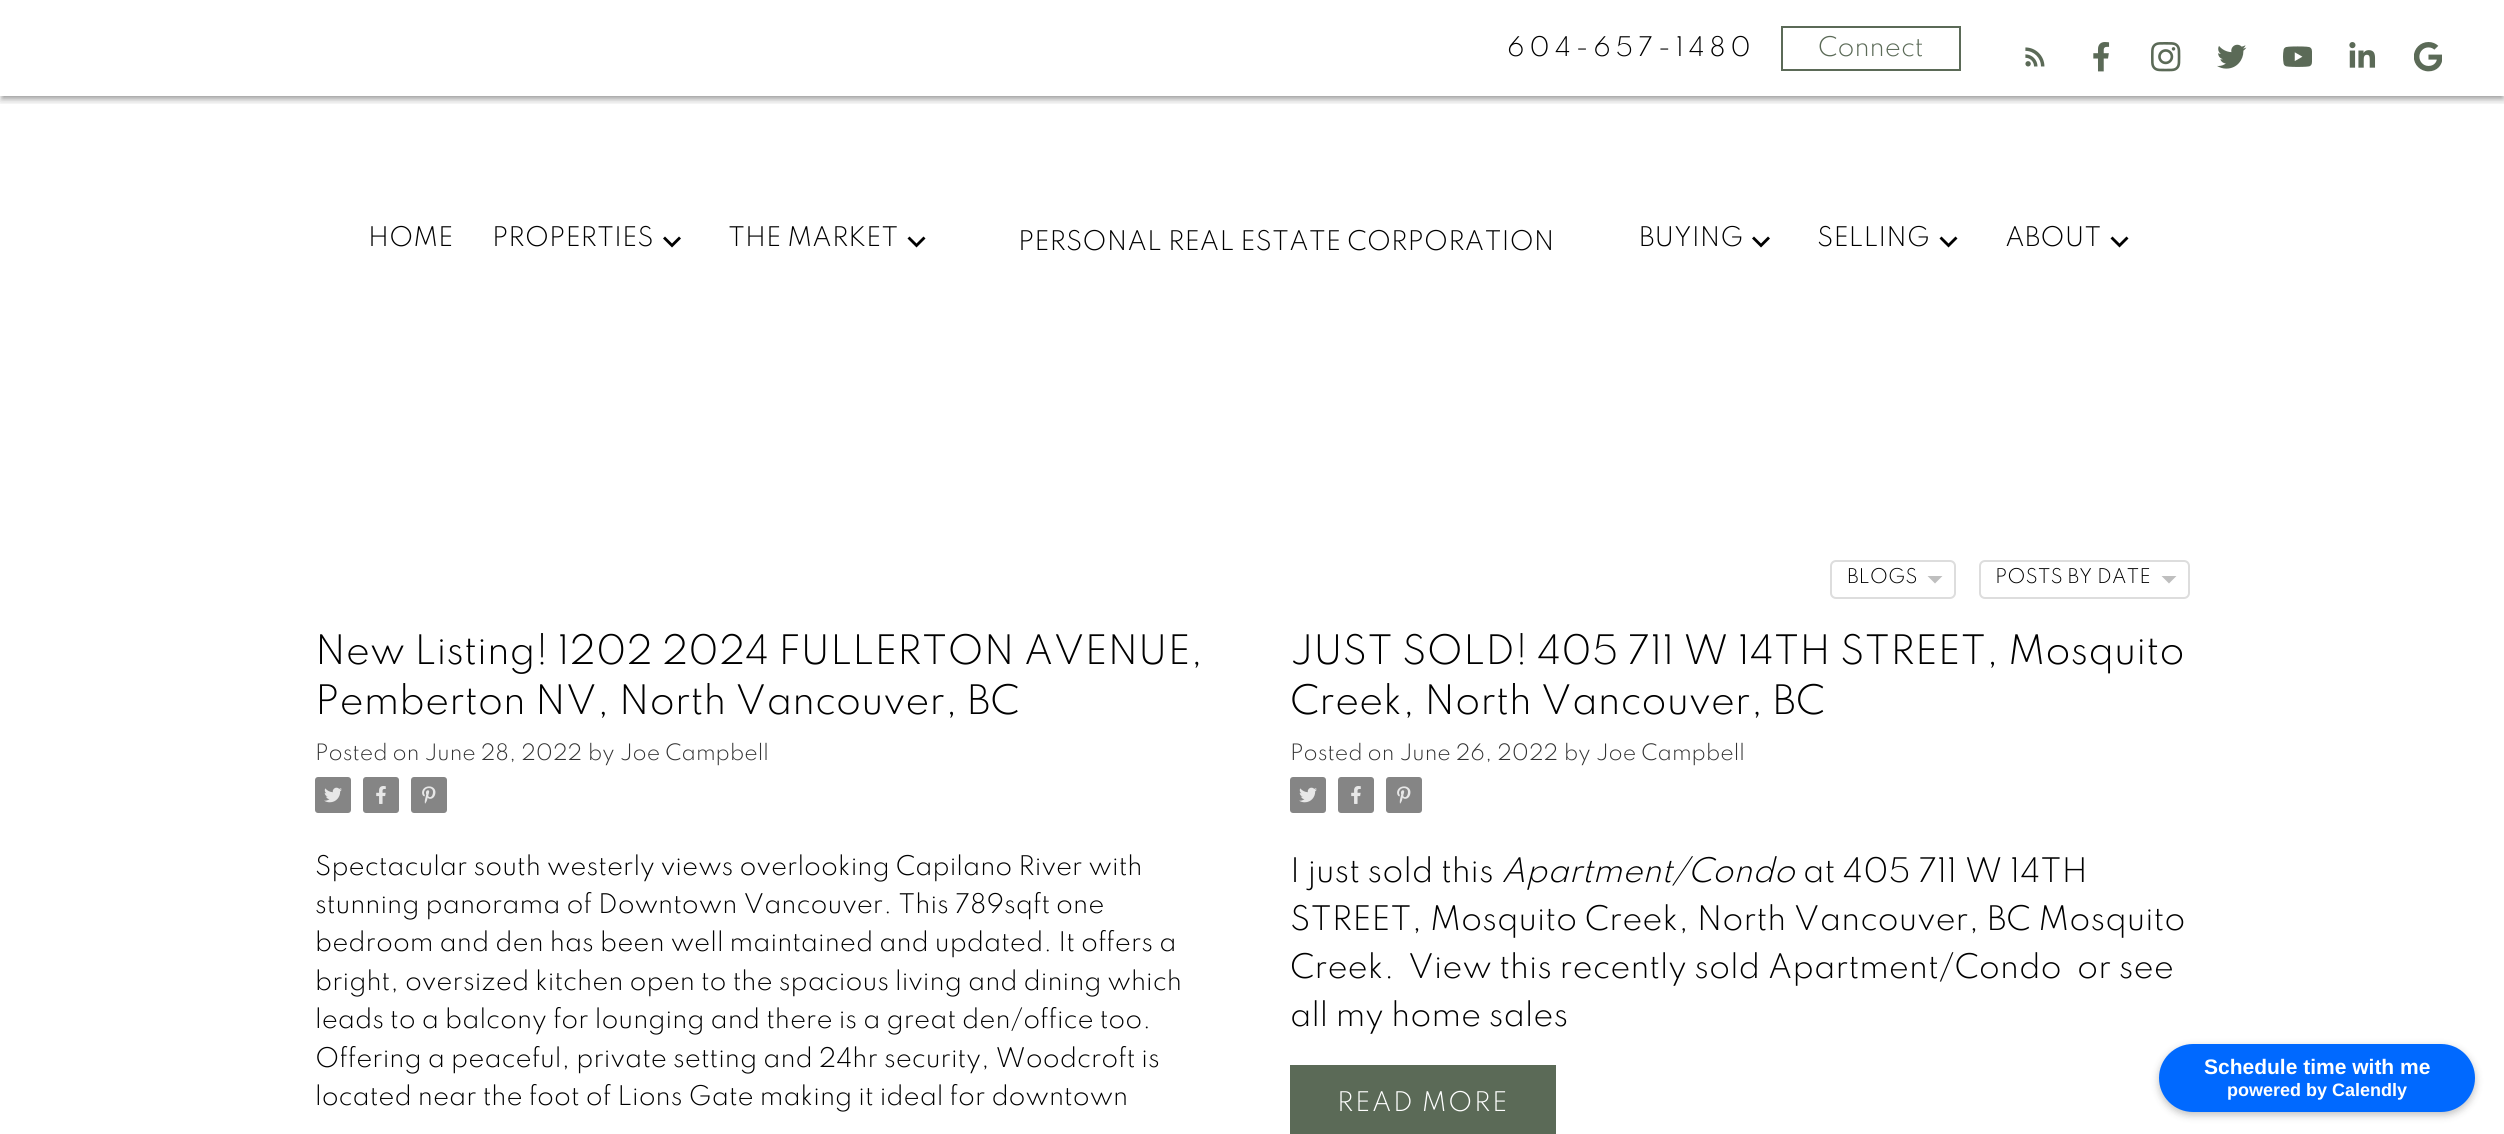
#include <cairo/cairo.h>
#include <math.h>
#include <stddef.h>


static void draw_spaced(cairo_t *cr, double x, double y, const char *s, double letter, double word) {
  cairo_move_to(cr, x, y);
  while (*s) {
    char ch[5] = {0};
    int n = 0;
    do ch[n++] = *s++; while ((*s & 0xC0) == 0x80);
    cairo_show_text(cr, ch);
    cairo_rel_move_to(cr, letter + word * (*ch == ' '), 0);
  }
}

static void rounded_rect(cairo_t *cr, double x, double y, double w, double h, double r) {
  cairo_new_sub_path(cr);
  cairo_arc(cr, x + w - r, y + h - r, r, 0, M_PI / 2);
  cairo_arc(cr, x + r, y + h - r, r, M_PI / 2, M_PI);
  cairo_arc(cr, x + r, y + r, r, M_PI, 1.5 * M_PI);
  cairo_arc(cr, x + w - r, y + r, r, 1.5 * M_PI, 2 * M_PI);
  cairo_close_path(cr);
}

static void draw_shadow(cairo_t *cr, double x, double y, double w, double h, double r, double blur, double alpha) {
  cairo_push_group_with_content(cr, CAIRO_CONTENT_ALPHA);
  cairo_set_operator(cr, CAIRO_OPERATOR_SOURCE);
  for (int i = 15; i >= -15 && fmin(w, h) + blur * i / 3 > 0; i -= 2) {
    double e = blur * i / 6;
    cairo_set_source_rgba(cr, 0, 0, 0, alpha * erfc((i - 1) / 8.5) / 2);
    rounded_rect(cr, x - e, y - e, w + 2 * e, h + 2 * e, fmax(0, fmin(r + e + blur * .6, fmin(w, h) / 2 + e)));
    cairo_fill(cr);
  }
  cairo_pattern_t *soft = cairo_pop_group(cr);
  cairo_mask(cr, soft);
  cairo_pattern_destroy(soft);
}

static void draw_image(cairo_t *cr, const char *path, double x, double y, double w, double h) {
  cairo_surface_t *image = cairo_image_surface_create_from_png(path);
  cairo_save(cr);
  cairo_set_source_surface(cr, image, x, y);
  cairo_rectangle(cr, x, y, w, h);
  cairo_fill(cr);
  cairo_restore(cr);
  cairo_surface_destroy(image);
}

static void draw(cairo_t *cr) {
  cairo_set_source_rgb(cr, 1, 1, 1);
  cairo_paint(cr);
  cairo_save(cr);
  cairo_rectangle(cr, 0, 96, 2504, 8);
  cairo_clip(cr);
  cairo_set_source_rgb(cr, 0, 0, 0);
  draw_shadow(cr, 0, 2, 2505, 96, 0, 6, 0.12);
  draw_shadow(cr, 0, 5, 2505, 96, 0, 3, 0.14);
  cairo_restore(cr);
  cairo_save(cr);
  cairo_rectangle(cr, 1, 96, 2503, 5);
  cairo_clip(cr);
  cairo_set_source_rgb(cr, 0, 0, 0);
  draw_shadow(cr, 3, 8, 2499, 90, 0, 2, 0.2);
  cairo_restore(cr);
  cairo_rectangle(cr, 1782, 27, 178, 43);
  cairo_set_source_rgb(cr, 91 / 255.0, 106 / 255.0, 87 / 255.0);
  cairo_stroke(cr);
  draw_image(cr, "images/1.png", 2025, 47, 20, 20);
  draw_image(cr, "images/2.png", 2093, 42, 17, 30);
  draw_image(cr, "images/3.png", 2151, 42, 30, 30);
  draw_image(cr, "images/4.png", 2217, 44, 30, 25);
  draw_image(cr, "images/5.png", 2283, 46, 29, 21);
  draw_image(cr, "images/6.png", 2349, 42, 27, 26);
  draw_image(cr, "images/7.png", 2414, 42, 28, 30);
  cairo_set_source_rgb(cr, 0, 0, 0);
  cairo_new_path(cr);
  cairo_move_to(cr, 679, 236.5);
  cairo_line_to(cr, 672, 243.5);
  cairo_line_to(cr, 665, 236.5);
  cairo_line_to(cr, 663, 238.5);
  cairo_line_to(cr, 672, 247.5);
  cairo_line_to(cr, 681, 238.5);
  cairo_close_path(cr);
  cairo_fill(cr);
  cairo_new_path(cr);
  cairo_move_to(cr, 923.5, 236.5);
  cairo_line_to(cr, 916.5, 243.5);
  cairo_line_to(cr, 909.5, 236.5);
  cairo_line_to(cr, 907.5, 238.5);
  cairo_line_to(cr, 916.5, 247.5);
  cairo_line_to(cr, 925.5, 238.5);
  cairo_close_path(cr);
  cairo_fill(cr);
  cairo_new_path(cr);
  cairo_move_to(cr, 1768, 236.5);
  cairo_line_to(cr, 1761, 243.5);
  cairo_line_to(cr, 1754, 236.5);
  cairo_line_to(cr, 1752, 238.5);
  cairo_line_to(cr, 1761, 247.5);
  cairo_line_to(cr, 1770, 238.5);
  cairo_close_path(cr);
  cairo_fill(cr);
  cairo_new_path(cr);
  cairo_move_to(cr, 1955.5, 236.5);
  cairo_line_to(cr, 1948.5, 243.5);
  cairo_line_to(cr, 1941.5, 236.5);
  cairo_line_to(cr, 1939.5, 238.5);
  cairo_line_to(cr, 1948.5, 247.5);
  cairo_line_to(cr, 1957.5, 238.5);
  cairo_close_path(cr);
  cairo_fill(cr);
  cairo_new_path(cr);
  cairo_move_to(cr, 2126.5, 236.5);
  cairo_line_to(cr, 2119.5, 243.5);
  cairo_line_to(cr, 2112.5, 236.5);
  cairo_line_to(cr, 2110.5, 238.5);
  cairo_line_to(cr, 2119.5, 247.5);
  cairo_line_to(cr, 2128.5, 238.5);
  cairo_close_path(cr);
  cairo_fill(cr);
  rounded_rect(cr, 1831, 561, 124, 37, 5);
  cairo_set_source_rgb(cr, 221 / 255.0, 221 / 255.0, 221 / 255.0);
  cairo_stroke(cr);
  draw_image(cr, "images/8.png", 1927, 576, 16, 8);
  rounded_rect(cr, 1980, 561, 209, 37, 5);
  cairo_stroke(cr);
  draw_image(cr, "images/8.png", 2161, 576, 16, 8);
  cairo_set_source_rgb(cr, 133 / 255.0, 133 / 255.0, 133 / 255.0);
  rounded_rect(cr, 315, 777, 36, 36, 3);
  cairo_fill(cr);
  draw_image(cr, "images/9.png", 324, 787, 18, 16);
  rounded_rect(cr, 363, 777, 36, 36, 3);
  cairo_fill(cr);
  draw_image(cr, "images/10.png", 376, 786, 10, 18);
  rounded_rect(cr, 411, 777, 36, 36, 3);
  cairo_fill(cr);
  draw_image(cr, "images/11.png", 422, 786, 14, 18);
  rounded_rect(cr, 1290, 777, 36, 36, 3);
  cairo_fill(cr);
  draw_image(cr, "images/9.png", 1299, 787, 18, 16);
  rounded_rect(cr, 1338, 777, 36, 36, 3);
  cairo_fill(cr);
  draw_image(cr, "images/10.png", 1351, 786, 10, 18);
  rounded_rect(cr, 1386, 777, 36, 36, 3);
  cairo_fill(cr);
  draw_image(cr, "images/11.png", 1397, 786, 14, 18);
  cairo_set_source_rgb(cr, 91 / 255.0, 106 / 255.0, 87 / 255.0);
  cairo_rectangle(cr, 1290, 1065, 266, 69);
  cairo_fill(cr);
  cairo_set_source_rgb(cr, 0, 0, 0);
  draw_shadow(cr, 2159, 1047, 316, 68, 34, 4, 0.25);
  cairo_set_source_rgb(cr, 0, 105 / 255.0, 1);
  rounded_rect(cr, 2159, 1044, 316, 68, 34);
  cairo_fill(cr);
  cairo_select_font_face(cr, "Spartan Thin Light", CAIRO_FONT_SLANT_NORMAL, CAIRO_FONT_WEIGHT_NORMAL);
  cairo_set_font_size(cr, 24);
  cairo_set_source_rgb(cr, 0, 0, 0);
  draw_spaced(cr, 1507, 56, "604-657-1480", 4.75, 0);
  cairo_set_source_rgb(cr, 91 / 255.0, 106 / 255.0, 87 / 255.0);
  cairo_move_to(cr, 1818, 56);
  cairo_show_text(cr, "Connect");
  cairo_set_source_rgb(cr, 0, 0, 0);
  cairo_move_to(cr, 368, 246);
  cairo_show_text(cr, "HOME");
  cairo_move_to(cr, 492, 246);
  cairo_show_text(cr, "PROPERTIES");
  cairo_move_to(cr, 728, 246);
  cairo_show_text(cr, "THE MARKET");
  cairo_move_to(cr, 1018, 250);
  cairo_show_text(cr, "PERSONAL REAL ESTATE CORPORATION");
  cairo_move_to(cr, 1639, 246);
  cairo_show_text(cr, "BUYING");
  cairo_move_to(cr, 1817, 246);
  cairo_show_text(cr, "SELLING");
  cairo_move_to(cr, 2005, 246);
  cairo_show_text(cr, "ABOUT");
  cairo_set_font_size(cr, 18);
  cairo_move_to(cr, 1847, 583);
  cairo_show_text(cr, "BLOGS");
  cairo_move_to(cr, 1995, 583);
  cairo_show_text(cr, "POSTS BY DATE");
  cairo_set_font_size(cr, 36);
  cairo_move_to(cr, 315, 664);
  cairo_show_text(cr, "New Listing! 1202 2024 FULLERTON AVENUE,");
  cairo_move_to(cr, 315, 714);
  cairo_show_text(cr, "Pemberton NV, North Vancouver, BC");
  cairo_set_font_size(cr, 20);
  cairo_set_source_rgb(cr, 51 / 255.0, 51 / 255.0, 51 / 255.0);
  cairo_move_to(cr, 315, 760);
  cairo_show_text(cr, "Posted on June 28, 2022");
  cairo_move_to(cr, 588, 760);
  cairo_show_text(cr, "by Joe Campbell");
  cairo_set_font_size(cr, 24);
  cairo_set_source_rgb(cr, 0, 0, 0);
  cairo_move_to(cr, 315, 875);
  cairo_show_text(cr, "Spectacular south westerly views overlooking Capilano River with");
  cairo_move_to(cr, 315, 913);
  cairo_show_text(cr, "stunning panorama of Downtown Vancouver. This 789sqft one");
  cairo_move_to(cr, 315, 951);
  cairo_show_text(cr, "bedroom and den has been well maintained and updated. It offers a");
  cairo_move_to(cr, 315, 990);
  cairo_show_text(cr, "bright, oversized kitchen open to the spacious living and dining which");
  cairo_move_to(cr, 315, 1028);
  cairo_show_text(cr, "leads to a balcony for lounging and there is a great den/office too.");
  cairo_move_to(cr, 315, 1067);
  cairo_show_text(cr, "Offering a peaceful, private setting and 24hr security, Woodcroft is");
  cairo_move_to(cr, 315, 1105);
  cairo_show_text(cr, "located near the foot of Lions Gate making it ideal for downtown");
  cairo_set_font_size(cr, 36);
  cairo_move_to(cr, 1290, 664);
  cairo_show_text(cr, "JUST SOLD! 405 711 W 14TH STREET, Mosquito");
  cairo_move_to(cr, 1290, 714);
  cairo_show_text(cr, "Creek, North Vancouver, BC");
  cairo_set_font_size(cr, 20);
  cairo_set_source_rgb(cr, 51 / 255.0, 51 / 255.0, 51 / 255.0);
  cairo_move_to(cr, 1290, 760);
  cairo_show_text(cr, "Posted on June 26, 2022");
  cairo_move_to(cr, 1564, 760);
  cairo_show_text(cr, "by Joe Campbell");
  cairo_set_font_size(cr, 30);
  cairo_set_source_rgb(cr, 0, 0, 0);
  cairo_move_to(cr, 1290, 882);
  cairo_show_text(cr, "I just sold this");
  cairo_select_font_face(cr, "Spartan Thin Light", CAIRO_FONT_SLANT_ITALIC, CAIRO_FONT_WEIGHT_NORMAL);
  cairo_move_to(cr, 1501, 882);
  cairo_show_text(cr, "Apartment/Condo");
  cairo_select_font_face(cr, "Spartan Thin Light", CAIRO_FONT_SLANT_NORMAL, CAIRO_FONT_WEIGHT_NORMAL);
  cairo_move_to(cr, 1803, 882);
  cairo_show_text(cr, "at 405 711 W 14TH");
  cairo_move_to(cr, 1290, 930);
  cairo_show_text(cr, "STREET, Mosquito Creek, North Vancouver, BC Mosquito");
  cairo_move_to(cr, 1290, 978);
  cairo_show_text(cr, "Creek.");
  cairo_move_to(cr, 1408, 978);
  cairo_show_text(cr, "View this recently sold Apartment/Condo");
  cairo_move_to(cr, 2077, 978);
  cairo_show_text(cr, "or see");
  cairo_move_to(cr, 1290, 1026);
  cairo_show_text(cr, "all my home sales");
  cairo_set_font_size(cr, 24);
  cairo_set_source_rgb(cr, 1, 1, 1);
  draw_spaced(cr, 1337, 1111, "READ MORE", 1.5, 0);
  cairo_select_font_face(cr, "Liberation Sans", CAIRO_FONT_SLANT_NORMAL, CAIRO_FONT_WEIGHT_BOLD);
  cairo_set_font_size(cr, 21);
  cairo_move_to(cr, 2204, 1074);
  cairo_show_text(cr, "Schedule time with me");
  cairo_set_font_size(cr, 18);
  cairo_move_to(cr, 2227, 1096);
  cairo_show_text(cr, "powered by Calendly");
}

int main(void) {
  cairo_surface_t *surface = cairo_image_surface_create(CAIRO_FORMAT_RGB24, 2504, 1134);
  cairo_t *cr = cairo_create(surface);
  cairo_font_options_t *options = cairo_font_options_create();
  cairo_font_options_set_hint_metrics(options, CAIRO_HINT_METRICS_OFF);
  cairo_font_options_set_hint_style(options, CAIRO_HINT_STYLE_NONE);
  cairo_set_font_options(cr, options);
  cairo_set_miter_limit(cr, 4);
  draw(cr);
  cairo_surface_write_to_png(surface, "out.png");
  cairo_font_options_destroy(options);
  cairo_destroy(cr);
  cairo_surface_destroy(surface);
  return 0;
}
